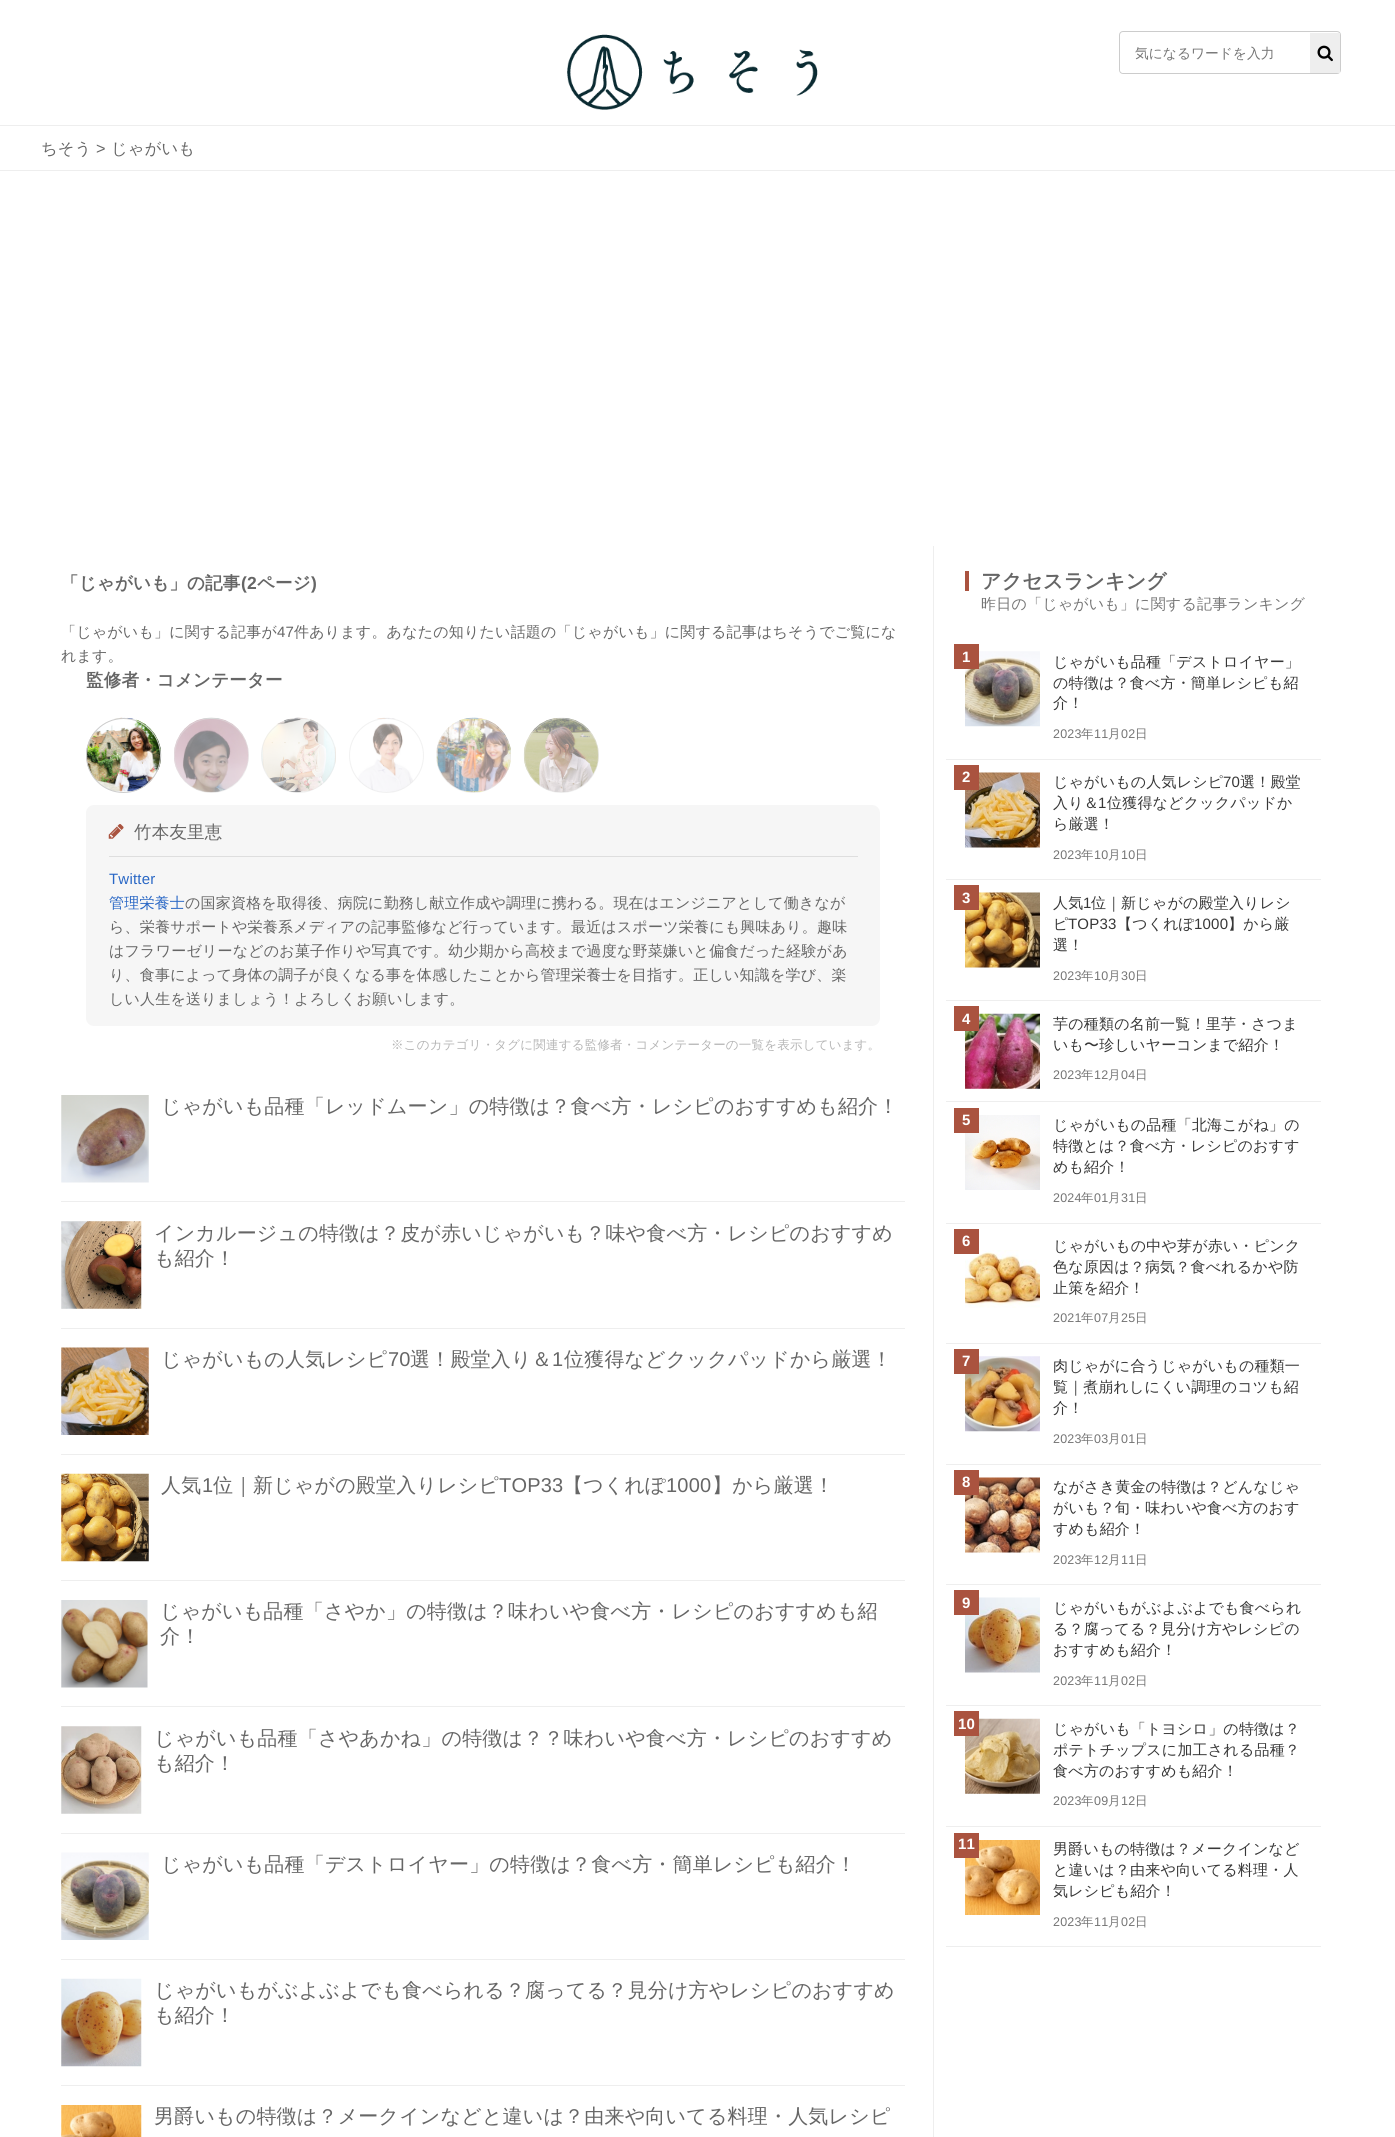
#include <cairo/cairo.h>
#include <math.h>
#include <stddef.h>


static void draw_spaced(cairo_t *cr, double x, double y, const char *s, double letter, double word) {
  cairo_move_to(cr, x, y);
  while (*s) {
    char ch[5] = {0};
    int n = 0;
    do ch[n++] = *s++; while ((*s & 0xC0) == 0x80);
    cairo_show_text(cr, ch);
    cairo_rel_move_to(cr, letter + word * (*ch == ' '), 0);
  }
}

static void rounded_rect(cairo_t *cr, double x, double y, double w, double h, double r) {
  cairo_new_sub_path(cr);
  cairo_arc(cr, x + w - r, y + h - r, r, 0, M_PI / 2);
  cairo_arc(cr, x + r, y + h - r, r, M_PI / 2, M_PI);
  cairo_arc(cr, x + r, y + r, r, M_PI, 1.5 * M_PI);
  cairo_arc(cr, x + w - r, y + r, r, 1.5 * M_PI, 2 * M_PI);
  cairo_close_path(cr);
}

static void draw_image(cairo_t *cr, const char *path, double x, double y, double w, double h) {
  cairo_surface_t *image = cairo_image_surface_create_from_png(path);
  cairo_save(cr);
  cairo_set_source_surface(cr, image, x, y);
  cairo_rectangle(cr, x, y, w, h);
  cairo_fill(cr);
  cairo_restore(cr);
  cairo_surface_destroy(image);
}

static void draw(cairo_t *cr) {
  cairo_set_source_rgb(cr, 1, 1, 1);
  cairo_paint(cr);
  cairo_set_source_rgb(cr, 238 / 255.0, 238 / 255.0, 238 / 255.0);
  cairo_rectangle(cr, 0, 125, 1395, 1);
  cairo_fill(cr);
  draw_image(cr, "images/1.png", 567, 34, 251, 76);
  rounded_rect(cr, 1119.5, 31.5, 221, 42, 3.5);
  cairo_set_source_rgb(cr, 204 / 255.0, 204 / 255.0, 204 / 255.0);
  cairo_set_line_width(cr, 1);
  cairo_stroke(cr);
  cairo_set_source_rgb(cr, 1, 1, 1);
  rounded_rect(cr, 1120, 33, 208, 40, 4);
  cairo_fill(cr);
  cairo_set_source_rgb(cr, 238 / 255.0, 238 / 255.0, 238 / 255.0);
  cairo_rectangle(cr, 1310, 33, 30, 40);
  cairo_fill(cr);
  draw_image(cr, "images/2.png", 1317, 45, 16, 17);
  cairo_rectangle(cr, 0, 170, 1395, 1);
  cairo_fill(cr);
  cairo_rectangle(cr, 933, 546, 1, 1591);
  cairo_fill(cr);
  draw_image(cr, "images/3.png", 86, 717, 76, 75);
  cairo_arc(cr, 123.5, 755.5, 37, 0, 2 * M_PI);
  cairo_set_source_rgb(cr, 204 / 255.0, 204 / 255.0, 204 / 255.0);
  cairo_stroke(cr);
  draw_image(cr, "images/4.png", 174, 717, 75, 76);
  cairo_arc(cr, 211.5, 755.5, 37, 0, 2 * M_PI);
  cairo_set_source_rgba(cr, 229 / 255.0, 229 / 255.0, 229 / 255.0, 0.5);
  cairo_stroke(cr);
  draw_image(cr, "images/5.png", 261, 717, 75, 76);
  cairo_arc(cr, 298.5, 755.5, 37, 0, 2 * M_PI);
  cairo_stroke(cr);
  draw_image(cr, "images/6.png", 358, 717, 55, 75);
  cairo_arc(cr, 386.5, 755.5, 37, 0, 2 * M_PI);
  cairo_stroke(cr);
  draw_image(cr, "images/7.png", 436, 717, 75, 76);
  cairo_arc(cr, 473.5, 755.5, 37, 0, 2 * M_PI);
  cairo_stroke(cr);
  draw_image(cr, "images/8.png", 523, 717, 76, 76);
  cairo_arc(cr, 561.5, 755.5, 37, 0, 2 * M_PI);
  cairo_stroke(cr);
  cairo_set_source_rgb(cr, 246 / 255.0, 246 / 255.0, 246 / 255.0);
  rounded_rect(cr, 86, 805, 794, 221, 8);
  cairo_fill(cr);
  cairo_set_source_rgb(cr, 222 / 255.0, 222 / 255.0, 222 / 255.0);
  cairo_rectangle(cr, 109, 856, 749, 1);
  cairo_fill(cr);
  draw_image(cr, "images/9.png", 108, 824, 16, 15);
  cairo_set_source_rgb(cr, 238 / 255.0, 238 / 255.0, 238 / 255.0);
  cairo_rectangle(cr, 61, 1201, 844, 1);
  cairo_fill(cr);
  draw_image(cr, "images/10.png", 61, 1095, 88, 88);
  cairo_rectangle(cr, 61, 1328, 844, 1);
  cairo_fill(cr);
  draw_image(cr, "images/11.png", 61, 1221, 81, 88);
  cairo_rectangle(cr, 61, 1454, 844, 1);
  cairo_fill(cr);
  draw_image(cr, "images/12.png", 61, 1347, 88, 88);
  cairo_rectangle(cr, 61, 1580, 844, 1);
  cairo_fill(cr);
  draw_image(cr, "images/13.png", 61, 1473, 88, 89);
  cairo_rectangle(cr, 61, 1706, 844, 1);
  cairo_fill(cr);
  draw_image(cr, "images/14.png", 61, 1600, 87, 88);
  cairo_rectangle(cr, 61, 1833, 844, 1);
  cairo_fill(cr);
  draw_image(cr, "images/15.png", 61, 1726, 81, 88);
  cairo_rectangle(cr, 61, 1959, 844, 1);
  cairo_fill(cr);
  draw_image(cr, "images/16.png", 61, 1852, 88, 88);
  cairo_rectangle(cr, 61, 2085, 844, 1);
  cairo_fill(cr);
  draw_image(cr, "images/17.png", 61, 1978, 81, 89);
  draw_image(cr, "images/18.png", 61, 2105, 81, 32);
  cairo_set_source_rgb(cr, 170 / 255.0, 83 / 255.0, 63 / 255.0);
  cairo_rectangle(cr, 965, 571, 4, 20);
  cairo_fill(cr);
  cairo_set_source_rgb(cr, 238 / 255.0, 238 / 255.0, 238 / 255.0);
  cairo_rectangle(cr, 946, 759, 375, 1);
  cairo_fill(cr);
  draw_image(cr, "images/19.png", 965, 651, 75, 76);
  cairo_set_source_rgb(cr, 170 / 255.0, 83 / 255.0, 63 / 255.0);
  cairo_rectangle(cr, 954, 644, 25, 25);
  cairo_fill(cr);
  cairo_set_source_rgb(cr, 238 / 255.0, 238 / 255.0, 238 / 255.0);
  cairo_rectangle(cr, 946, 879, 375, 1);
  cairo_fill(cr);
  draw_image(cr, "images/20.png", 965, 772, 75, 76);
  cairo_set_source_rgb(cr, 170 / 255.0, 83 / 255.0, 63 / 255.0);
  cairo_rectangle(cr, 954, 765, 25, 25);
  cairo_fill(cr);
  cairo_set_source_rgb(cr, 238 / 255.0, 238 / 255.0, 238 / 255.0);
  cairo_rectangle(cr, 946, 1000, 375, 1);
  cairo_fill(cr);
  draw_image(cr, "images/21.png", 965, 892, 75, 76);
  cairo_set_source_rgb(cr, 170 / 255.0, 83 / 255.0, 63 / 255.0);
  cairo_rectangle(cr, 954, 885, 25, 25);
  cairo_fill(cr);
  cairo_set_source_rgb(cr, 238 / 255.0, 238 / 255.0, 238 / 255.0);
  cairo_rectangle(cr, 946, 1101, 375, 1);
  cairo_fill(cr);
  draw_image(cr, "images/22.png", 965, 1013, 75, 76);
  cairo_set_source_rgb(cr, 170 / 255.0, 83 / 255.0, 63 / 255.0);
  cairo_rectangle(cr, 954, 1006, 25, 25);
  cairo_fill(cr);
  cairo_set_source_rgb(cr, 238 / 255.0, 238 / 255.0, 238 / 255.0);
  cairo_rectangle(cr, 946, 1223, 375, 1);
  cairo_fill(cr);
  draw_image(cr, "images/23.png", 965, 1115, 75, 75);
  cairo_set_source_rgb(cr, 170 / 255.0, 83 / 255.0, 63 / 255.0);
  cairo_rectangle(cr, 954, 1108, 25, 25);
  cairo_fill(cr);
  cairo_set_source_rgb(cr, 238 / 255.0, 238 / 255.0, 238 / 255.0);
  cairo_rectangle(cr, 946, 1343, 375, 1);
  cairo_fill(cr);
  draw_image(cr, "images/24.png", 965, 1250, 75, 58);
  cairo_set_source_rgb(cr, 170 / 255.0, 83 / 255.0, 63 / 255.0);
  cairo_rectangle(cr, 954, 1229, 25, 25);
  cairo_fill(cr);
  cairo_set_source_rgb(cr, 238 / 255.0, 238 / 255.0, 238 / 255.0);
  cairo_rectangle(cr, 946, 1464, 375, 1);
  cairo_fill(cr);
  draw_image(cr, "images/25.png", 965, 1356, 75, 76);
  cairo_set_source_rgb(cr, 170 / 255.0, 83 / 255.0, 63 / 255.0);
  cairo_rectangle(cr, 954, 1349, 25, 25);
  cairo_fill(cr);
  cairo_set_source_rgb(cr, 238 / 255.0, 238 / 255.0, 238 / 255.0);
  cairo_rectangle(cr, 946, 1584, 375, 1);
  cairo_fill(cr);
  draw_image(cr, "images/26.png", 965, 1477, 75, 76);
  cairo_set_source_rgb(cr, 170 / 255.0, 83 / 255.0, 63 / 255.0);
  cairo_rectangle(cr, 954, 1470, 25, 25);
  cairo_fill(cr);
  cairo_set_source_rgb(cr, 238 / 255.0, 238 / 255.0, 238 / 255.0);
  cairo_rectangle(cr, 946, 1705, 375, 1);
  cairo_fill(cr);
  draw_image(cr, "images/27.png", 965, 1597, 75, 76);
  cairo_set_source_rgb(cr, 170 / 255.0, 83 / 255.0, 63 / 255.0);
  cairo_rectangle(cr, 954, 1590, 25, 25);
  cairo_fill(cr);
  cairo_set_source_rgb(cr, 238 / 255.0, 238 / 255.0, 238 / 255.0);
  cairo_rectangle(cr, 946, 1826, 375, 1);
  cairo_fill(cr);
  draw_image(cr, "images/28.png", 965, 1718, 75, 76);
  cairo_set_source_rgb(cr, 170 / 255.0, 83 / 255.0, 63 / 255.0);
  cairo_rectangle(cr, 954, 1711, 25, 25);
  cairo_fill(cr);
  cairo_set_source_rgb(cr, 238 / 255.0, 238 / 255.0, 238 / 255.0);
  cairo_rectangle(cr, 946, 1946, 375, 1);
  cairo_fill(cr);
  draw_image(cr, "images/29.png", 965, 1840, 75, 75);
  cairo_set_source_rgb(cr, 170 / 255.0, 83 / 255.0, 63 / 255.0);
  cairo_rectangle(cr, 954, 1833, 25, 25);
  cairo_fill(cr);
  cairo_select_font_face(cr, "WenQuanYi Zen Hei Medium", CAIRO_FONT_SLANT_NORMAL, CAIRO_FONT_WEIGHT_NORMAL);
  cairo_set_font_size(cr, 13.75);
  cairo_set_source_rgb(cr, 117 / 255.0, 117 / 255.0, 117 / 255.0);
  cairo_move_to(cr, 1135, 58);
  cairo_show_text(cr, "気になるワードを入力");
  cairo_set_font_size(cr, 16.25);
  cairo_set_source_rgb(cr, 102 / 255.0, 102 / 255.0, 102 / 255.0);
  draw_spaced(cr, 41, 154, "ちそう", 0.2, 0);
  cairo_select_font_face(cr, "Liberation Sans", CAIRO_FONT_SLANT_NORMAL, CAIRO_FONT_WEIGHT_NORMAL);
  draw_spaced(cr, 96, 154, ">", 0.2, 0);
  cairo_select_font_face(cr, "WenQuanYi Zen Hei Medium", CAIRO_FONT_SLANT_NORMAL, CAIRO_FONT_WEIGHT_NORMAL);
  draw_spaced(cr, 111, 154, "じゃがいも", 0.2, 0);
  cairo_select_font_face(cr, "WenQuanYi Zen Hei", CAIRO_FONT_SLANT_NORMAL, CAIRO_FONT_WEIGHT_BOLD);
  cairo_set_font_size(cr, 17.5);
  draw_spaced(cr, 61, 589, "「じゃがいも」の記事", 0.2, 0);
  cairo_select_font_face(cr, "Liberation Sans", CAIRO_FONT_SLANT_NORMAL, CAIRO_FONT_WEIGHT_BOLD);
  draw_spaced(cr, 241, 589, "(2", 0.2, 0);
  cairo_select_font_face(cr, "WenQuanYi Zen Hei", CAIRO_FONT_SLANT_NORMAL, CAIRO_FONT_WEIGHT_BOLD);
  draw_spaced(cr, 257, 589, "ページ", 0.2, 0);
  cairo_select_font_face(cr, "Liberation Sans", CAIRO_FONT_SLANT_NORMAL, CAIRO_FONT_WEIGHT_BOLD);
  draw_spaced(cr, 311, 589, ")", 0.2, 0);
  cairo_select_font_face(cr, "WenQuanYi Zen Hei Medium", CAIRO_FONT_SLANT_NORMAL, CAIRO_FONT_WEIGHT_NORMAL);
  cairo_set_font_size(cr, 15);
  draw_spaced(cr, 61, 637, "「じゃがいも」に関する記事が", 0.2, 0);
  cairo_select_font_face(cr, "Liberation Sans", CAIRO_FONT_SLANT_NORMAL, CAIRO_FONT_WEIGHT_NORMAL);
  draw_spaced(cr, 277, 637, "47", 0.2, 0);
  cairo_select_font_face(cr, "WenQuanYi Zen Hei Medium", CAIRO_FONT_SLANT_NORMAL, CAIRO_FONT_WEIGHT_NORMAL);
  draw_spaced(cr, 294, 637, "件あります。あなたの知りたい話題の「じゃがいも」に関する記事はちそうでご覧にな", 0.2, 0);
  draw_spaced(cr, 61, 661, "れます。", 0.2, 0);
  cairo_select_font_face(cr, "WenQuanYi Zen Hei", CAIRO_FONT_SLANT_NORMAL, CAIRO_FONT_WEIGHT_BOLD);
  cairo_set_font_size(cr, 17.5);
  draw_spaced(cr, 86, 686, "監修者・コメンテーター", 0.2, 0);
  cairo_select_font_face(cr, "WenQuanYi Zen Hei Medium", CAIRO_FONT_SLANT_NORMAL, CAIRO_FONT_WEIGHT_NORMAL);
  draw_spaced(cr, 134, 838, "竹本友里恵", 0.2, 0);
  cairo_select_font_face(cr, "Liberation Sans", CAIRO_FONT_SLANT_NORMAL, CAIRO_FONT_WEIGHT_NORMAL);
  cairo_set_font_size(cr, 15);
  cairo_set_source_rgb(cr, 41 / 255.0, 103 / 255.0, 197 / 255.0);
  draw_spaced(cr, 109, 884, "Twitter", 0.2, 0);
  cairo_select_font_face(cr, "WenQuanYi Zen Hei Medium", CAIRO_FONT_SLANT_NORMAL, CAIRO_FONT_WEIGHT_NORMAL);
  draw_spaced(cr, 109, 908, "管理栄養士", 0.2, 0);
  cairo_set_source_rgb(cr, 102 / 255.0, 102 / 255.0, 102 / 255.0);
  draw_spaced(cr, 185, 908, "の国家資格を取得後、病院に勤務し献立作成や調理に携わる。現在はエンジニアとして働きなが", 0.2, 0);
  draw_spaced(cr, 109, 932, "ら、栄養サポートや栄養系メディアの記事監修など行っています。最近はスポーツ栄養にも興味あり。趣味", 0.2, 0);
  draw_spaced(cr, 109, 956, "はフラワーゼリーなどのお菓子作りや写真です。幼少期から高校まで過度な野菜嫌いと偏食だった経験があ", 0.2, 0);
  draw_spaced(cr, 109, 980, "り、食事によって身体の調子が良くなる事を体感したことから管理栄養士を目指す。正しい知識を学び、楽", 0.2, 0);
  draw_spaced(cr, 109, 1004, "しい人生を送りましょう！よろしくお願いします。", 0.2, 0);
  cairo_set_font_size(cr, 12.5);
  cairo_set_source_rgb(cr, 181 / 255.0, 181 / 255.0, 181 / 255.0);
  draw_spaced(cr, 391, 1049, "※このカテゴリ・タグに関連する監修者・コメンテーターの一覧を表示しています。", 0.2, 0);
  cairo_set_font_size(cr, 20);
  cairo_set_source_rgb(cr, 102 / 255.0, 102 / 255.0, 102 / 255.0);
  draw_spaced(cr, 161, 1113, "じゃがいも品種「レッドムーン」の特徴は？食べ方・レシピのおすすめも紹介！", 0.2, 0);
  draw_spaced(cr, 154, 1240, "インカルージュの特徴は？皮が赤いじゃがいも？味や食べ方・レシピのおすすめ", 0.2, 0);
  draw_spaced(cr, 154, 1265, "も紹介！", 0.2, 0);
  draw_spaced(cr, 161, 1366, "じゃがいもの人気レシピ", 0.2, 0);
  cairo_select_font_face(cr, "Liberation Sans", CAIRO_FONT_SLANT_NORMAL, CAIRO_FONT_WEIGHT_NORMAL);
  draw_spaced(cr, 388, 1366, "70", 0.2, 0);
  cairo_select_font_face(cr, "WenQuanYi Zen Hei Medium", CAIRO_FONT_SLANT_NORMAL, CAIRO_FONT_WEIGHT_NORMAL);
  draw_spaced(cr, 410, 1366, "選！殿堂入り＆", 0.2, 0);
  cairo_select_font_face(cr, "Liberation Sans", CAIRO_FONT_SLANT_NORMAL, CAIRO_FONT_WEIGHT_NORMAL);
  draw_spaced(cr, 552, 1366, "1", 0.2, 0);
  cairo_select_font_face(cr, "WenQuanYi Zen Hei Medium", CAIRO_FONT_SLANT_NORMAL, CAIRO_FONT_WEIGHT_NORMAL);
  draw_spaced(cr, 564, 1366, "位獲得などクックパッドから厳選！", 0.2, 0);
  draw_spaced(cr, 161, 1492, "人気", 0.2, 0);
  cairo_select_font_face(cr, "Liberation Sans", CAIRO_FONT_SLANT_NORMAL, CAIRO_FONT_WEIGHT_NORMAL);
  draw_spaced(cr, 202, 1492, "1", 0.2, 0);
  cairo_select_font_face(cr, "WenQuanYi Zen Hei Medium", CAIRO_FONT_SLANT_NORMAL, CAIRO_FONT_WEIGHT_NORMAL);
  draw_spaced(cr, 213, 1492, "位｜新じゃがの殿堂入りレシピ", 0.2, 0);
  cairo_select_font_face(cr, "Liberation Sans", CAIRO_FONT_SLANT_NORMAL, CAIRO_FONT_WEIGHT_NORMAL);
  draw_spaced(cr, 499, 1492, "TOP33", 0.2, 0);
  cairo_select_font_face(cr, "WenQuanYi Zen Hei Medium", CAIRO_FONT_SLANT_NORMAL, CAIRO_FONT_WEIGHT_NORMAL);
  draw_spaced(cr, 563, 1492, "【つくれぽ", 0.2, 0);
  cairo_select_font_face(cr, "Liberation Sans", CAIRO_FONT_SLANT_NORMAL, CAIRO_FONT_WEIGHT_NORMAL);
  draw_spaced(cr, 666, 1492, "1000", 0.2, 0);
  cairo_select_font_face(cr, "WenQuanYi Zen Hei Medium", CAIRO_FONT_SLANT_NORMAL, CAIRO_FONT_WEIGHT_NORMAL);
  draw_spaced(cr, 712, 1492, "】から厳選！", 0.2, 0);
  draw_spaced(cr, 160, 1618, "じゃがいも品種「さやか」の特徴は？味わいや食べ方・レシピのおすすめも紹", 0.2, 0);
  draw_spaced(cr, 160, 1643, "介！", 0.2, 0);
  draw_spaced(cr, 154, 1745, "じゃがいも品種「さやあかね」の特徴は？？味わいや食べ方・レシピのおすすめ", 0.2, 0);
  draw_spaced(cr, 154, 1770, "も紹介！", 0.2, 0);
  draw_spaced(cr, 161, 1871, "じゃがいも品種「デストロイヤー」の特徴は？食べ方・簡単レシピも紹介！", 0.2, 0);
  draw_spaced(cr, 154, 1997, "じゃがいもがぶよぶよでも食べられる？腐ってる？見分け方やレシピのおすすめ", 0.2, 0);
  draw_spaced(cr, 154, 2022, "も紹介！", 0.2, 0);
  draw_spaced(cr, 154, 2123, "男爵いもの特徴は？メークインなどと違いは？由来や向いてる料理・人気レシピ", 0.2, 0);
  cairo_select_font_face(cr, "WenQuanYi Zen Hei", CAIRO_FONT_SLANT_NORMAL, CAIRO_FONT_WEIGHT_BOLD);
  draw_spaced(cr, 981, 588, "アクセスランキング", 0.2, 0);
  cairo_select_font_face(cr, "WenQuanYi Zen Hei Medium", CAIRO_FONT_SLANT_NORMAL, CAIRO_FONT_WEIGHT_NORMAL);
  cairo_set_font_size(cr, 15);
  cairo_set_source_rgb(cr, 117 / 255.0, 117 / 255.0, 117 / 255.0);
  draw_spaced(cr, 981, 609, "昨日の「じゃがいも」に関する記事ランキング", 0.2, 0);
  cairo_select_font_face(cr, "Liberation Sans", CAIRO_FONT_SLANT_NORMAL, CAIRO_FONT_WEIGHT_BOLD);
  cairo_set_source_rgb(cr, 1, 1, 1);
  draw_spaced(cr, 962, 662, "1", 0.2, 0);
  cairo_select_font_face(cr, "WenQuanYi Zen Hei Medium", CAIRO_FONT_SLANT_NORMAL, CAIRO_FONT_WEIGHT_NORMAL);
  cairo_set_source_rgb(cr, 55 / 255.0, 55 / 255.0, 55 / 255.0);
  draw_spaced(cr, 1053, 667, "じゃがいも品種「デストロイヤー」", 0.2, 0);
  draw_spaced(cr, 1053, 688, "の特徴は？食べ方・簡単レシピも紹", 0.2, 0);
  draw_spaced(cr, 1053, 708, "介！", 0.2, 0);
  cairo_select_font_face(cr, "Liberation Sans", CAIRO_FONT_SLANT_NORMAL, CAIRO_FONT_WEIGHT_NORMAL);
  cairo_set_font_size(cr, 12.5);
  cairo_set_source_rgb(cr, 117 / 255.0, 117 / 255.0, 117 / 255.0);
  draw_spaced(cr, 1053, 738, "2023", 0.2, 0);
  cairo_select_font_face(cr, "WenQuanYi Zen Hei Medium", CAIRO_FONT_SLANT_NORMAL, CAIRO_FONT_WEIGHT_NORMAL);
  draw_spaced(cr, 1081, 738, "年", 0.2, 0);
  cairo_select_font_face(cr, "Liberation Sans", CAIRO_FONT_SLANT_NORMAL, CAIRO_FONT_WEIGHT_NORMAL);
  draw_spaced(cr, 1094, 738, "11", 0.2, 0);
  cairo_select_font_face(cr, "WenQuanYi Zen Hei Medium", CAIRO_FONT_SLANT_NORMAL, CAIRO_FONT_WEIGHT_NORMAL);
  draw_spaced(cr, 1108, 738, "月", 0.2, 0);
  cairo_select_font_face(cr, "Liberation Sans", CAIRO_FONT_SLANT_NORMAL, CAIRO_FONT_WEIGHT_NORMAL);
  draw_spaced(cr, 1121, 738, "02", 0.2, 0);
  cairo_select_font_face(cr, "WenQuanYi Zen Hei Medium", CAIRO_FONT_SLANT_NORMAL, CAIRO_FONT_WEIGHT_NORMAL);
  draw_spaced(cr, 1135, 738, "日", 0.2, 0);
  cairo_select_font_face(cr, "Liberation Sans", CAIRO_FONT_SLANT_NORMAL, CAIRO_FONT_WEIGHT_BOLD);
  cairo_set_font_size(cr, 15);
  cairo_set_source_rgb(cr, 1, 1, 1);
  draw_spaced(cr, 962, 782, "2", 0.2, 0);
  cairo_select_font_face(cr, "WenQuanYi Zen Hei Medium", CAIRO_FONT_SLANT_NORMAL, CAIRO_FONT_WEIGHT_NORMAL);
  cairo_set_source_rgb(cr, 55 / 255.0, 55 / 255.0, 55 / 255.0);
  draw_spaced(cr, 1053, 787, "じゃがいもの人気レシピ", 0.2, 0);
  cairo_select_font_face(cr, "Liberation Sans", CAIRO_FONT_SLANT_NORMAL, CAIRO_FONT_WEIGHT_NORMAL);
  draw_spaced(cr, 1223, 787, "70", 0.2, 0);
  cairo_select_font_face(cr, "WenQuanYi Zen Hei Medium", CAIRO_FONT_SLANT_NORMAL, CAIRO_FONT_WEIGHT_NORMAL);
  draw_spaced(cr, 1240, 787, "選！殿堂", 0.2, 0);
  draw_spaced(cr, 1053, 808, "入り＆", 0.2, 0);
  cairo_select_font_face(cr, "Liberation Sans", CAIRO_FONT_SLANT_NORMAL, CAIRO_FONT_WEIGHT_NORMAL);
  draw_spaced(cr, 1098, 808, "1", 0.2, 0);
  cairo_select_font_face(cr, "WenQuanYi Zen Hei Medium", CAIRO_FONT_SLANT_NORMAL, CAIRO_FONT_WEIGHT_NORMAL);
  draw_spaced(cr, 1107, 808, "位獲得などクックパッドか", 0.2, 0);
  draw_spaced(cr, 1053, 829, "ら厳選！", 0.2, 0);
  cairo_select_font_face(cr, "Liberation Sans", CAIRO_FONT_SLANT_NORMAL, CAIRO_FONT_WEIGHT_NORMAL);
  cairo_set_font_size(cr, 12.5);
  cairo_set_source_rgb(cr, 117 / 255.0, 117 / 255.0, 117 / 255.0);
  draw_spaced(cr, 1053, 859, "2023", 0.2, 0);
  cairo_select_font_face(cr, "WenQuanYi Zen Hei Medium", CAIRO_FONT_SLANT_NORMAL, CAIRO_FONT_WEIGHT_NORMAL);
  draw_spaced(cr, 1081, 859, "年", 0.2, 0);
  cairo_select_font_face(cr, "Liberation Sans", CAIRO_FONT_SLANT_NORMAL, CAIRO_FONT_WEIGHT_NORMAL);
  draw_spaced(cr, 1094, 859, "10", 0.2, 0);
  cairo_select_font_face(cr, "WenQuanYi Zen Hei Medium", CAIRO_FONT_SLANT_NORMAL, CAIRO_FONT_WEIGHT_NORMAL);
  draw_spaced(cr, 1108, 859, "月", 0.2, 0);
  cairo_select_font_face(cr, "Liberation Sans", CAIRO_FONT_SLANT_NORMAL, CAIRO_FONT_WEIGHT_NORMAL);
  draw_spaced(cr, 1121, 859, "10", 0.2, 0);
  cairo_select_font_face(cr, "WenQuanYi Zen Hei Medium", CAIRO_FONT_SLANT_NORMAL, CAIRO_FONT_WEIGHT_NORMAL);
  draw_spaced(cr, 1135, 859, "日", 0.2, 0);
  cairo_select_font_face(cr, "Liberation Sans", CAIRO_FONT_SLANT_NORMAL, CAIRO_FONT_WEIGHT_BOLD);
  cairo_set_font_size(cr, 15);
  cairo_set_source_rgb(cr, 1, 1, 1);
  draw_spaced(cr, 962, 903, "3", 0.2, 0);
  cairo_select_font_face(cr, "WenQuanYi Zen Hei Medium", CAIRO_FONT_SLANT_NORMAL, CAIRO_FONT_WEIGHT_NORMAL);
  cairo_set_source_rgb(cr, 55 / 255.0, 55 / 255.0, 55 / 255.0);
  draw_spaced(cr, 1053, 908, "人気", 0.2, 0);
  cairo_select_font_face(cr, "Liberation Sans", CAIRO_FONT_SLANT_NORMAL, CAIRO_FONT_WEIGHT_NORMAL);
  draw_spaced(cr, 1083, 908, "1", 0.2, 0);
  cairo_select_font_face(cr, "WenQuanYi Zen Hei Medium", CAIRO_FONT_SLANT_NORMAL, CAIRO_FONT_WEIGHT_NORMAL);
  draw_spaced(cr, 1091, 908, "位｜新じゃがの殿堂入りレシ", 0.2, 0);
  draw_spaced(cr, 1053, 929, "ピ", 0.2, 0);
  cairo_select_font_face(cr, "Liberation Sans", CAIRO_FONT_SLANT_NORMAL, CAIRO_FONT_WEIGHT_NORMAL);
  draw_spaced(cr, 1068, 929, "TOP33", 0.2, 0);
  cairo_select_font_face(cr, "WenQuanYi Zen Hei Medium", CAIRO_FONT_SLANT_NORMAL, CAIRO_FONT_WEIGHT_NORMAL);
  draw_spaced(cr, 1117, 929, "【つくれぽ", 0.2, 0);
  cairo_select_font_face(cr, "Liberation Sans", CAIRO_FONT_SLANT_NORMAL, CAIRO_FONT_WEIGHT_NORMAL);
  draw_spaced(cr, 1194, 929, "1000", 0.2, 0);
  cairo_select_font_face(cr, "WenQuanYi Zen Hei Medium", CAIRO_FONT_SLANT_NORMAL, CAIRO_FONT_WEIGHT_NORMAL);
  draw_spaced(cr, 1228, 929, "】から厳", 0.2, 0);
  draw_spaced(cr, 1053, 950, "選！", 0.2, 0);
  cairo_select_font_face(cr, "Liberation Sans", CAIRO_FONT_SLANT_NORMAL, CAIRO_FONT_WEIGHT_NORMAL);
  cairo_set_font_size(cr, 12.5);
  cairo_set_source_rgb(cr, 117 / 255.0, 117 / 255.0, 117 / 255.0);
  draw_spaced(cr, 1053, 980, "2023", 0.2, 0);
  cairo_select_font_face(cr, "WenQuanYi Zen Hei Medium", CAIRO_FONT_SLANT_NORMAL, CAIRO_FONT_WEIGHT_NORMAL);
  draw_spaced(cr, 1081, 980, "年", 0.2, 0);
  cairo_select_font_face(cr, "Liberation Sans", CAIRO_FONT_SLANT_NORMAL, CAIRO_FONT_WEIGHT_NORMAL);
  draw_spaced(cr, 1094, 980, "10", 0.2, 0);
  cairo_select_font_face(cr, "WenQuanYi Zen Hei Medium", CAIRO_FONT_SLANT_NORMAL, CAIRO_FONT_WEIGHT_NORMAL);
  draw_spaced(cr, 1108, 980, "月", 0.2, 0);
  cairo_select_font_face(cr, "Liberation Sans", CAIRO_FONT_SLANT_NORMAL, CAIRO_FONT_WEIGHT_NORMAL);
  draw_spaced(cr, 1121, 980, "30", 0.2, 0);
  cairo_select_font_face(cr, "WenQuanYi Zen Hei Medium", CAIRO_FONT_SLANT_NORMAL, CAIRO_FONT_WEIGHT_NORMAL);
  draw_spaced(cr, 1135, 980, "日", 0.2, 0);
  cairo_select_font_face(cr, "Liberation Sans", CAIRO_FONT_SLANT_NORMAL, CAIRO_FONT_WEIGHT_BOLD);
  cairo_set_font_size(cr, 15);
  cairo_set_source_rgb(cr, 1, 1, 1);
  draw_spaced(cr, 962, 1024, "4", 0.2, 0);
  cairo_select_font_face(cr, "WenQuanYi Zen Hei Medium", CAIRO_FONT_SLANT_NORMAL, CAIRO_FONT_WEIGHT_NORMAL);
  cairo_set_source_rgb(cr, 55 / 255.0, 55 / 255.0, 55 / 255.0);
  draw_spaced(cr, 1053, 1029, "芋の種類の名前一覧！里芋・さつま", 0.2, 0);
  draw_spaced(cr, 1053, 1050, "いも〜珍しいヤーコンまで紹介！", 0.2, 0);
  cairo_select_font_face(cr, "Liberation Sans", CAIRO_FONT_SLANT_NORMAL, CAIRO_FONT_WEIGHT_NORMAL);
  cairo_set_font_size(cr, 12.5);
  cairo_set_source_rgb(cr, 117 / 255.0, 117 / 255.0, 117 / 255.0);
  draw_spaced(cr, 1053, 1079, "2023", 0.2, 0);
  cairo_select_font_face(cr, "WenQuanYi Zen Hei Medium", CAIRO_FONT_SLANT_NORMAL, CAIRO_FONT_WEIGHT_NORMAL);
  draw_spaced(cr, 1081, 1079, "年", 0.2, 0);
  cairo_select_font_face(cr, "Liberation Sans", CAIRO_FONT_SLANT_NORMAL, CAIRO_FONT_WEIGHT_NORMAL);
  draw_spaced(cr, 1094, 1079, "12", 0.2, 0);
  cairo_select_font_face(cr, "WenQuanYi Zen Hei Medium", CAIRO_FONT_SLANT_NORMAL, CAIRO_FONT_WEIGHT_NORMAL);
  draw_spaced(cr, 1108, 1079, "月", 0.2, 0);
  cairo_select_font_face(cr, "Liberation Sans", CAIRO_FONT_SLANT_NORMAL, CAIRO_FONT_WEIGHT_NORMAL);
  draw_spaced(cr, 1121, 1079, "04", 0.2, 0);
  cairo_select_font_face(cr, "WenQuanYi Zen Hei Medium", CAIRO_FONT_SLANT_NORMAL, CAIRO_FONT_WEIGHT_NORMAL);
  draw_spaced(cr, 1135, 1079, "日", 0.2, 0);
  cairo_select_font_face(cr, "Liberation Sans", CAIRO_FONT_SLANT_NORMAL, CAIRO_FONT_WEIGHT_BOLD);
  cairo_set_font_size(cr, 15);
  cairo_set_source_rgb(cr, 1, 1, 1);
  draw_spaced(cr, 962, 1125, "5", 0.2, 0);
  cairo_select_font_face(cr, "WenQuanYi Zen Hei Medium", CAIRO_FONT_SLANT_NORMAL, CAIRO_FONT_WEIGHT_NORMAL);
  cairo_set_source_rgb(cr, 55 / 255.0, 55 / 255.0, 55 / 255.0);
  draw_spaced(cr, 1053, 1130, "じゃがいもの品種「北海こがね」の", 0.2, 0);
  draw_spaced(cr, 1053, 1151, "特徴とは？食べ方・レシピのおすす", 0.2, 0);
  draw_spaced(cr, 1053, 1172, "めも紹介！", 0.2, 0);
  cairo_select_font_face(cr, "Liberation Sans", CAIRO_FONT_SLANT_NORMAL, CAIRO_FONT_WEIGHT_NORMAL);
  cairo_set_font_size(cr, 12.5);
  cairo_set_source_rgb(cr, 117 / 255.0, 117 / 255.0, 117 / 255.0);
  draw_spaced(cr, 1053, 1202, "2024", 0.2, 0);
  cairo_select_font_face(cr, "WenQuanYi Zen Hei Medium", CAIRO_FONT_SLANT_NORMAL, CAIRO_FONT_WEIGHT_NORMAL);
  draw_spaced(cr, 1081, 1202, "年", 0.2, 0);
  cairo_select_font_face(cr, "Liberation Sans", CAIRO_FONT_SLANT_NORMAL, CAIRO_FONT_WEIGHT_NORMAL);
  draw_spaced(cr, 1094, 1202, "01", 0.2, 0);
  cairo_select_font_face(cr, "WenQuanYi Zen Hei Medium", CAIRO_FONT_SLANT_NORMAL, CAIRO_FONT_WEIGHT_NORMAL);
  draw_spaced(cr, 1108, 1202, "月", 0.2, 0);
  cairo_select_font_face(cr, "Liberation Sans", CAIRO_FONT_SLANT_NORMAL, CAIRO_FONT_WEIGHT_NORMAL);
  draw_spaced(cr, 1121, 1202, "31", 0.2, 0);
  cairo_select_font_face(cr, "WenQuanYi Zen Hei Medium", CAIRO_FONT_SLANT_NORMAL, CAIRO_FONT_WEIGHT_NORMAL);
  draw_spaced(cr, 1135, 1202, "日", 0.2, 0);
  cairo_select_font_face(cr, "Liberation Sans", CAIRO_FONT_SLANT_NORMAL, CAIRO_FONT_WEIGHT_BOLD);
  cairo_set_font_size(cr, 15);
  cairo_set_source_rgb(cr, 1, 1, 1);
  draw_spaced(cr, 962, 1246, "6", 0.2, 0);
  cairo_select_font_face(cr, "WenQuanYi Zen Hei Medium", CAIRO_FONT_SLANT_NORMAL, CAIRO_FONT_WEIGHT_NORMAL);
  cairo_set_source_rgb(cr, 55 / 255.0, 55 / 255.0, 55 / 255.0);
  draw_spaced(cr, 1053, 1251, "じゃがいもの中や芽が赤い・ピンク", 0.2, 0);
  draw_spaced(cr, 1053, 1272, "色な原因は？病気？食べれるかや防", 0.2, 0);
  draw_spaced(cr, 1053, 1293, "止策を紹介！", 0.2, 0);
  cairo_select_font_face(cr, "Liberation Sans", CAIRO_FONT_SLANT_NORMAL, CAIRO_FONT_WEIGHT_NORMAL);
  cairo_set_font_size(cr, 12.5);
  cairo_set_source_rgb(cr, 117 / 255.0, 117 / 255.0, 117 / 255.0);
  draw_spaced(cr, 1053, 1322, "2021", 0.2, 0);
  cairo_select_font_face(cr, "WenQuanYi Zen Hei Medium", CAIRO_FONT_SLANT_NORMAL, CAIRO_FONT_WEIGHT_NORMAL);
  draw_spaced(cr, 1081, 1322, "年", 0.2, 0);
  cairo_select_font_face(cr, "Liberation Sans", CAIRO_FONT_SLANT_NORMAL, CAIRO_FONT_WEIGHT_NORMAL);
  draw_spaced(cr, 1094, 1322, "07", 0.2, 0);
  cairo_select_font_face(cr, "WenQuanYi Zen Hei Medium", CAIRO_FONT_SLANT_NORMAL, CAIRO_FONT_WEIGHT_NORMAL);
  draw_spaced(cr, 1108, 1322, "月", 0.2, 0);
  cairo_select_font_face(cr, "Liberation Sans", CAIRO_FONT_SLANT_NORMAL, CAIRO_FONT_WEIGHT_NORMAL);
  draw_spaced(cr, 1121, 1322, "25", 0.2, 0);
  cairo_select_font_face(cr, "WenQuanYi Zen Hei Medium", CAIRO_FONT_SLANT_NORMAL, CAIRO_FONT_WEIGHT_NORMAL);
  draw_spaced(cr, 1135, 1322, "日", 0.2, 0);
  cairo_select_font_face(cr, "Liberation Sans", CAIRO_FONT_SLANT_NORMAL, CAIRO_FONT_WEIGHT_BOLD);
  cairo_set_font_size(cr, 15);
  cairo_set_source_rgb(cr, 1, 1, 1);
  draw_spaced(cr, 962, 1366, "7", 0.2, 0);
  cairo_select_font_face(cr, "WenQuanYi Zen Hei Medium", CAIRO_FONT_SLANT_NORMAL, CAIRO_FONT_WEIGHT_NORMAL);
  cairo_set_source_rgb(cr, 55 / 255.0, 55 / 255.0, 55 / 255.0);
  draw_spaced(cr, 1053, 1371, "肉じゃがに合うじゃがいもの種類一", 0.2, 0);
  draw_spaced(cr, 1053, 1392, "覧｜煮崩れしにくい調理のコツも紹", 0.2, 0);
  draw_spaced(cr, 1053, 1413, "介！", 0.2, 0);
  cairo_select_font_face(cr, "Liberation Sans", CAIRO_FONT_SLANT_NORMAL, CAIRO_FONT_WEIGHT_NORMAL);
  cairo_set_font_size(cr, 12.5);
  cairo_set_source_rgb(cr, 117 / 255.0, 117 / 255.0, 117 / 255.0);
  draw_spaced(cr, 1053, 1443, "2023", 0.2, 0);
  cairo_select_font_face(cr, "WenQuanYi Zen Hei Medium", CAIRO_FONT_SLANT_NORMAL, CAIRO_FONT_WEIGHT_NORMAL);
  draw_spaced(cr, 1081, 1443, "年", 0.2, 0);
  cairo_select_font_face(cr, "Liberation Sans", CAIRO_FONT_SLANT_NORMAL, CAIRO_FONT_WEIGHT_NORMAL);
  draw_spaced(cr, 1094, 1443, "03", 0.2, 0);
  cairo_select_font_face(cr, "WenQuanYi Zen Hei Medium", CAIRO_FONT_SLANT_NORMAL, CAIRO_FONT_WEIGHT_NORMAL);
  draw_spaced(cr, 1108, 1443, "月", 0.2, 0);
  cairo_select_font_face(cr, "Liberation Sans", CAIRO_FONT_SLANT_NORMAL, CAIRO_FONT_WEIGHT_NORMAL);
  draw_spaced(cr, 1121, 1443, "01", 0.2, 0);
  cairo_select_font_face(cr, "WenQuanYi Zen Hei Medium", CAIRO_FONT_SLANT_NORMAL, CAIRO_FONT_WEIGHT_NORMAL);
  draw_spaced(cr, 1135, 1443, "日", 0.2, 0);
  cairo_select_font_face(cr, "Liberation Sans", CAIRO_FONT_SLANT_NORMAL, CAIRO_FONT_WEIGHT_BOLD);
  cairo_set_font_size(cr, 15);
  cairo_set_source_rgb(cr, 1, 1, 1);
  draw_spaced(cr, 962, 1487, "8", 0.2, 0);
  cairo_select_font_face(cr, "WenQuanYi Zen Hei Medium", CAIRO_FONT_SLANT_NORMAL, CAIRO_FONT_WEIGHT_NORMAL);
  cairo_set_source_rgb(cr, 55 / 255.0, 55 / 255.0, 55 / 255.0);
  draw_spaced(cr, 1053, 1492, "ながさき黄金の特徴は？どんなじゃ", 0.2, 0);
  draw_spaced(cr, 1053, 1513, "がいも？旬・味わいや食べ方のおす", 0.2, 0);
  draw_spaced(cr, 1053, 1534, "すめも紹介！", 0.2, 0);
  cairo_select_font_face(cr, "Liberation Sans", CAIRO_FONT_SLANT_NORMAL, CAIRO_FONT_WEIGHT_NORMAL);
  cairo_set_font_size(cr, 12.5);
  cairo_set_source_rgb(cr, 117 / 255.0, 117 / 255.0, 117 / 255.0);
  draw_spaced(cr, 1053, 1564, "2023", 0.2, 0);
  cairo_select_font_face(cr, "WenQuanYi Zen Hei Medium", CAIRO_FONT_SLANT_NORMAL, CAIRO_FONT_WEIGHT_NORMAL);
  draw_spaced(cr, 1081, 1564, "年", 0.2, 0);
  cairo_select_font_face(cr, "Liberation Sans", CAIRO_FONT_SLANT_NORMAL, CAIRO_FONT_WEIGHT_NORMAL);
  draw_spaced(cr, 1094, 1564, "12", 0.2, 0);
  cairo_select_font_face(cr, "WenQuanYi Zen Hei Medium", CAIRO_FONT_SLANT_NORMAL, CAIRO_FONT_WEIGHT_NORMAL);
  draw_spaced(cr, 1108, 1564, "月", 0.2, 0);
  cairo_select_font_face(cr, "Liberation Sans", CAIRO_FONT_SLANT_NORMAL, CAIRO_FONT_WEIGHT_NORMAL);
  draw_spaced(cr, 1121, 1564, "11", 0.2, 0);
  cairo_select_font_face(cr, "WenQuanYi Zen Hei Medium", CAIRO_FONT_SLANT_NORMAL, CAIRO_FONT_WEIGHT_NORMAL);
  draw_spaced(cr, 1135, 1564, "日", 0.2, 0);
  cairo_select_font_face(cr, "Liberation Sans", CAIRO_FONT_SLANT_NORMAL, CAIRO_FONT_WEIGHT_BOLD);
  cairo_set_font_size(cr, 15);
  cairo_set_source_rgb(cr, 1, 1, 1);
  draw_spaced(cr, 962, 1608, "9", 0.2, 0);
  cairo_select_font_face(cr, "WenQuanYi Zen Hei Medium", CAIRO_FONT_SLANT_NORMAL, CAIRO_FONT_WEIGHT_NORMAL);
  cairo_set_source_rgb(cr, 55 / 255.0, 55 / 255.0, 55 / 255.0);
  draw_spaced(cr, 1053, 1613, "じゃがいもがぶよぶよでも食べられ", 0.2, 0);
  draw_spaced(cr, 1053, 1634, "る？腐ってる？見分け方やレシピの", 0.2, 0);
  draw_spaced(cr, 1053, 1655, "おすすめも紹介！", 0.2, 0);
  cairo_select_font_face(cr, "Liberation Sans", CAIRO_FONT_SLANT_NORMAL, CAIRO_FONT_WEIGHT_NORMAL);
  cairo_set_font_size(cr, 12.5);
  cairo_set_source_rgb(cr, 117 / 255.0, 117 / 255.0, 117 / 255.0);
  draw_spaced(cr, 1053, 1685, "2023", 0.2, 0);
  cairo_select_font_face(cr, "WenQuanYi Zen Hei Medium", CAIRO_FONT_SLANT_NORMAL, CAIRO_FONT_WEIGHT_NORMAL);
  draw_spaced(cr, 1081, 1685, "年", 0.2, 0);
  cairo_select_font_face(cr, "Liberation Sans", CAIRO_FONT_SLANT_NORMAL, CAIRO_FONT_WEIGHT_NORMAL);
  draw_spaced(cr, 1094, 1685, "11", 0.2, 0);
  cairo_select_font_face(cr, "WenQuanYi Zen Hei Medium", CAIRO_FONT_SLANT_NORMAL, CAIRO_FONT_WEIGHT_NORMAL);
  draw_spaced(cr, 1108, 1685, "月", 0.2, 0);
  cairo_select_font_face(cr, "Liberation Sans", CAIRO_FONT_SLANT_NORMAL, CAIRO_FONT_WEIGHT_NORMAL);
  draw_spaced(cr, 1121, 1685, "02", 0.2, 0);
  cairo_select_font_face(cr, "WenQuanYi Zen Hei Medium", CAIRO_FONT_SLANT_NORMAL, CAIRO_FONT_WEIGHT_NORMAL);
  draw_spaced(cr, 1135, 1685, "日", 0.2, 0);
  cairo_select_font_face(cr, "Liberation Sans", CAIRO_FONT_SLANT_NORMAL, CAIRO_FONT_WEIGHT_BOLD);
  cairo_set_font_size(cr, 15);
  cairo_set_source_rgb(cr, 1, 1, 1);
  draw_spaced(cr, 958, 1729, "10", 0.2, 0);
  cairo_select_font_face(cr, "WenQuanYi Zen Hei Medium", CAIRO_FONT_SLANT_NORMAL, CAIRO_FONT_WEIGHT_NORMAL);
  cairo_set_source_rgb(cr, 55 / 255.0, 55 / 255.0, 55 / 255.0);
  draw_spaced(cr, 1053, 1734, "じゃがいも「トヨシロ」の特徴は？", 0.2, 0);
  draw_spaced(cr, 1053, 1755, "ポテトチップスに加工される品種？", 0.2, 0);
  draw_spaced(cr, 1053, 1776, "食べ方のおすすめも紹介！", 0.2, 0);
  cairo_select_font_face(cr, "Liberation Sans", CAIRO_FONT_SLANT_NORMAL, CAIRO_FONT_WEIGHT_NORMAL);
  cairo_set_font_size(cr, 12.5);
  cairo_set_source_rgb(cr, 117 / 255.0, 117 / 255.0, 117 / 255.0);
  draw_spaced(cr, 1053, 1805, "2023", 0.2, 0);
  cairo_select_font_face(cr, "WenQuanYi Zen Hei Medium", CAIRO_FONT_SLANT_NORMAL, CAIRO_FONT_WEIGHT_NORMAL);
  draw_spaced(cr, 1081, 1805, "年", 0.2, 0);
  cairo_select_font_face(cr, "Liberation Sans", CAIRO_FONT_SLANT_NORMAL, CAIRO_FONT_WEIGHT_NORMAL);
  draw_spaced(cr, 1094, 1805, "09", 0.2, 0);
  cairo_select_font_face(cr, "WenQuanYi Zen Hei Medium", CAIRO_FONT_SLANT_NORMAL, CAIRO_FONT_WEIGHT_NORMAL);
  draw_spaced(cr, 1108, 1805, "月", 0.2, 0);
  cairo_select_font_face(cr, "Liberation Sans", CAIRO_FONT_SLANT_NORMAL, CAIRO_FONT_WEIGHT_NORMAL);
  draw_spaced(cr, 1121, 1805, "12", 0.2, 0);
  cairo_select_font_face(cr, "WenQuanYi Zen Hei Medium", CAIRO_FONT_SLANT_NORMAL, CAIRO_FONT_WEIGHT_NORMAL);
  draw_spaced(cr, 1135, 1805, "日", 0.2, 0);
  cairo_select_font_face(cr, "Liberation Sans", CAIRO_FONT_SLANT_NORMAL, CAIRO_FONT_WEIGHT_BOLD);
  cairo_set_font_size(cr, 15);
  cairo_set_source_rgb(cr, 1, 1, 1);
  draw_spaced(cr, 958, 1849, "11", 0.2, 0);
  cairo_select_font_face(cr, "WenQuanYi Zen Hei Medium", CAIRO_FONT_SLANT_NORMAL, CAIRO_FONT_WEIGHT_NORMAL);
  cairo_set_source_rgb(cr, 55 / 255.0, 55 / 255.0, 55 / 255.0);
  draw_spaced(cr, 1053, 1854, "男爵いもの特徴は？メークインなど", 0.2, 0);
  draw_spaced(cr, 1053, 1875, "と違いは？由来や向いてる料理・人", 0.2, 0);
  draw_spaced(cr, 1053, 1896, "気レシピも紹介！", 0.2, 0);
  cairo_select_font_face(cr, "Liberation Sans", CAIRO_FONT_SLANT_NORMAL, CAIRO_FONT_WEIGHT_NORMAL);
  cairo_set_font_size(cr, 12.5);
  cairo_set_source_rgb(cr, 117 / 255.0, 117 / 255.0, 117 / 255.0);
  draw_spaced(cr, 1053, 1926, "2023", 0.2, 0);
  cairo_select_font_face(cr, "WenQuanYi Zen Hei Medium", CAIRO_FONT_SLANT_NORMAL, CAIRO_FONT_WEIGHT_NORMAL);
  draw_spaced(cr, 1081, 1926, "年", 0.2, 0);
  cairo_select_font_face(cr, "Liberation Sans", CAIRO_FONT_SLANT_NORMAL, CAIRO_FONT_WEIGHT_NORMAL);
  draw_spaced(cr, 1094, 1926, "11", 0.2, 0);
  cairo_select_font_face(cr, "WenQuanYi Zen Hei Medium", CAIRO_FONT_SLANT_NORMAL, CAIRO_FONT_WEIGHT_NORMAL);
  draw_spaced(cr, 1108, 1926, "月", 0.2, 0);
  cairo_select_font_face(cr, "Liberation Sans", CAIRO_FONT_SLANT_NORMAL, CAIRO_FONT_WEIGHT_NORMAL);
  draw_spaced(cr, 1121, 1926, "02", 0.2, 0);
  cairo_select_font_face(cr, "WenQuanYi Zen Hei Medium", CAIRO_FONT_SLANT_NORMAL, CAIRO_FONT_WEIGHT_NORMAL);
  draw_spaced(cr, 1135, 1926, "日", 0.2, 0);
}

int main(void) {
  cairo_surface_t *surface = cairo_image_surface_create(CAIRO_FORMAT_RGB24, 1395, 2137);
  cairo_t *cr = cairo_create(surface);
  cairo_font_options_t *options = cairo_font_options_create();
  cairo_font_options_set_hint_metrics(options, CAIRO_HINT_METRICS_OFF);
  cairo_font_options_set_hint_style(options, CAIRO_HINT_STYLE_NONE);
  cairo_set_font_options(cr, options);
  cairo_set_miter_limit(cr, 4);
  draw(cr);
  cairo_surface_write_to_png(surface, "out.png");
  cairo_font_options_destroy(options);
  cairo_destroy(cr);
  cairo_surface_destroy(surface);
  return 0;
}
